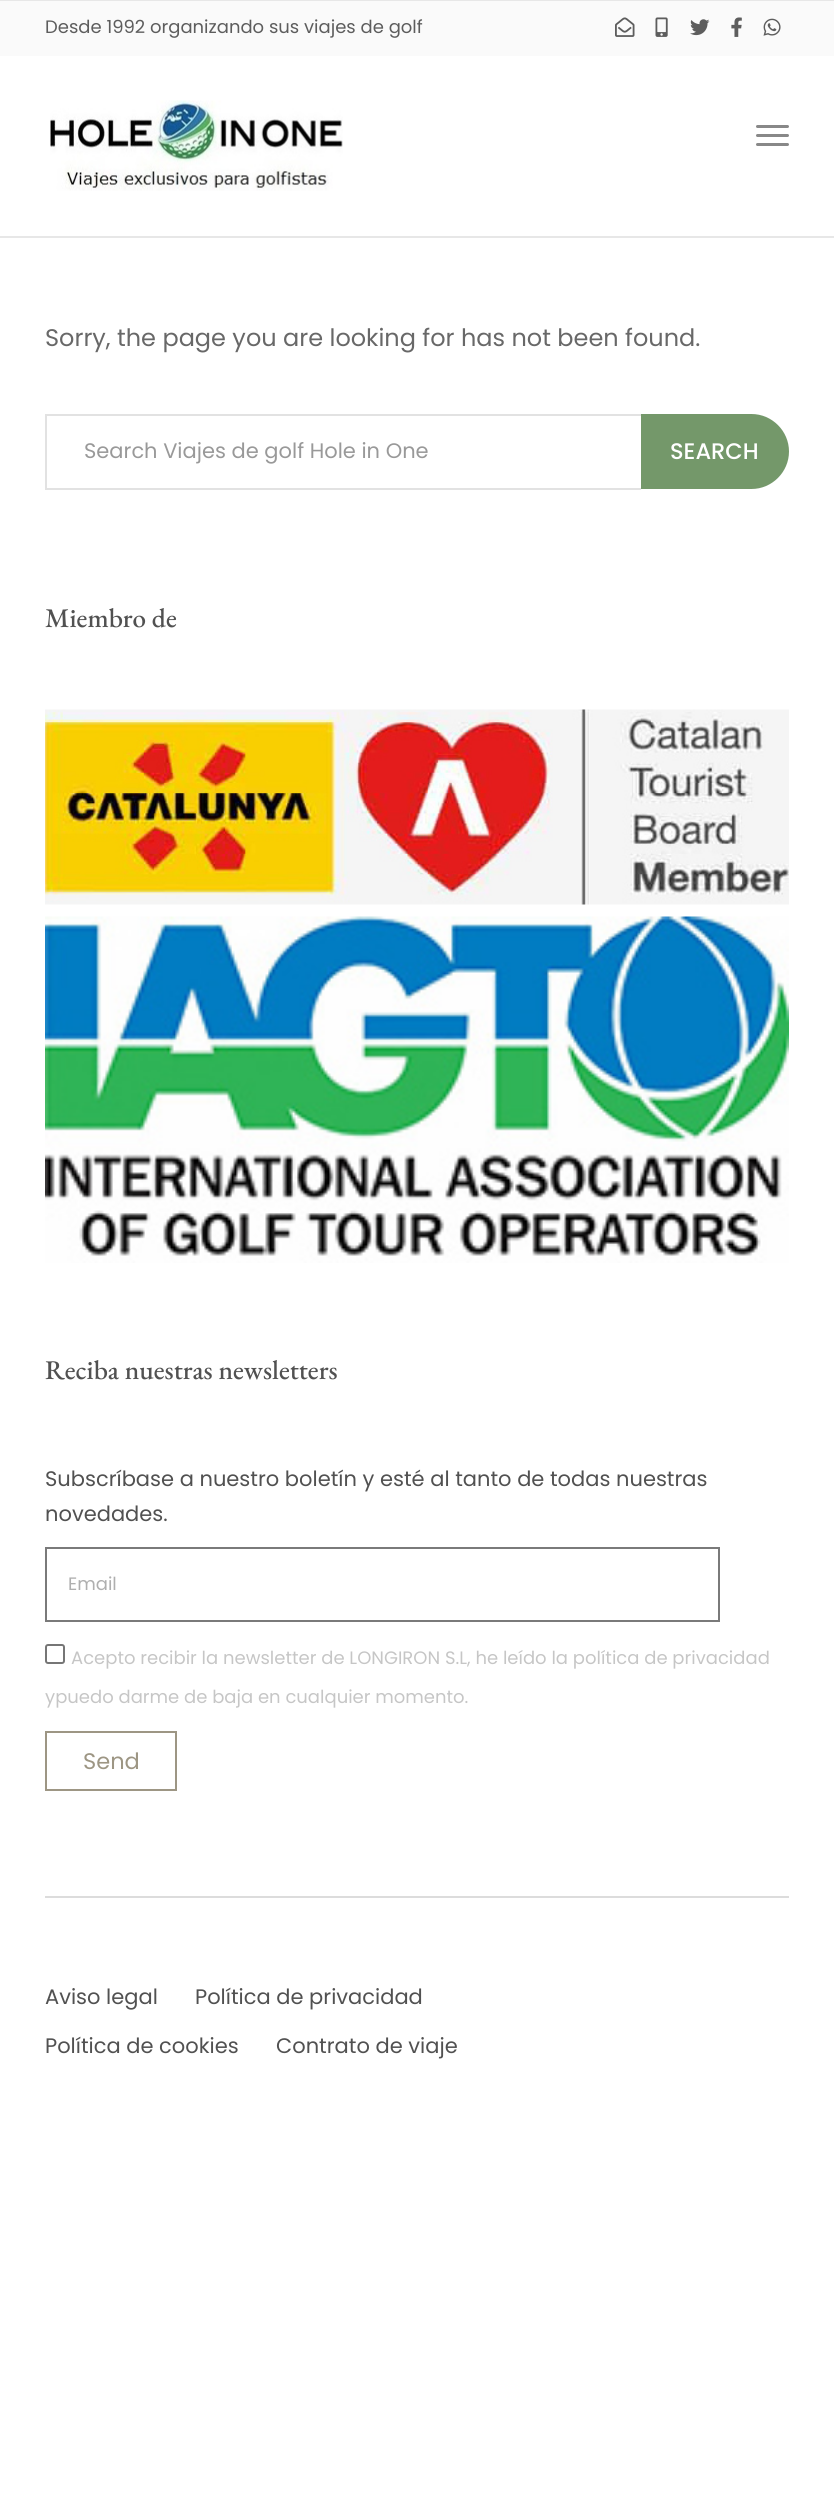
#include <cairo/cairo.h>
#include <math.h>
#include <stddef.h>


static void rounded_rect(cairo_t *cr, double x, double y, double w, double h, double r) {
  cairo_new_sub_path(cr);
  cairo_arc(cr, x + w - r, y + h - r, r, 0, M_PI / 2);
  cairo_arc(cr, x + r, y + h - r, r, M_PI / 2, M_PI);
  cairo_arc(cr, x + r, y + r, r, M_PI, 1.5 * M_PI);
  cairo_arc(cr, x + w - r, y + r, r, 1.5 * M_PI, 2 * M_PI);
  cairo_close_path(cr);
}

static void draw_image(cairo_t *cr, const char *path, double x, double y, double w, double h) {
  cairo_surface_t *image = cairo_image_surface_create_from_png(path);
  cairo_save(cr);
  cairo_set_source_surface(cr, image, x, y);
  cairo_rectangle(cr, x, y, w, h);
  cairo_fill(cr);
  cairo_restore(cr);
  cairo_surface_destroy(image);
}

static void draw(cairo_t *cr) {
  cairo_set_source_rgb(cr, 1, 1, 1);
  cairo_paint(cr);
  cairo_set_source_rgb(cr, 231 / 255.0, 231 / 255.0, 231 / 255.0);
  cairo_rectangle(cr, 0, 0, 834, 1);
  cairo_fill(cr);
  cairo_rectangle(cr, 0, 236, 834, 2);
  cairo_fill(cr);
  cairo_set_source_rgb(cr, 250 / 255.0, 250 / 255.0, 250 / 255.0);
  cairo_rectangle(cr, 0, 1, 834, 55);
  cairo_fill(cr);
  draw_image(cr, "images/1.png", 615, 17, 20, 20);
  draw_image(cr, "images/2.png", 655, 17, 13, 20);
  draw_image(cr, "images/3.png", 690, 19, 20, 17);
  draw_image(cr, "images/4.png", 731, 17, 11, 20);
  draw_image(cr, "images/5.png", 763, 18, 18, 18);
  draw_image(cr, "images/6.png", 50, 100, 293, 91);
  cairo_set_source_rgb(cr, 136 / 255.0, 136 / 255.0, 136 / 255.0);
  rounded_rect(cr, 756, 125, 33, 3, 1.5);
  cairo_fill(cr);
  rounded_rect(cr, 756, 134, 33, 3, 1.5);
  cairo_fill(cr);
  rounded_rect(cr, 756, 143, 33, 3, 1.5);
  cairo_fill(cr);
  cairo_set_source_rgb(cr, 226 / 255.0, 226 / 255.0, 226 / 255.0);
  cairo_rectangle(cr, 45, 414, 596, 2);
  cairo_fill(cr);
  cairo_rectangle(cr, 45, 488, 596, 2);
  cairo_fill(cr);
  cairo_rectangle(cr, 45, 414, 2, 75);
  cairo_fill(cr);
  cairo_set_source_rgb(cr, 116 / 255.0, 152 / 255.0, 106 / 255.0);
  cairo_new_path(cr);
  cairo_move_to(cr, 641, 414);
  cairo_line_to(cr, 751.5, 414);
  cairo_curve_to(cr, 772, 414, 789, 431, 789, 451.5);
  cairo_curve_to(cr, 789, 472, 772, 489, 751.5, 489);
  cairo_line_to(cr, 641, 489);
  cairo_close_path(cr);
  cairo_fill(cr);
  draw_image(cr, "images/7.png", 45, 709, 744, 196);
  draw_image(cr, "images/8.png", 45, 916, 744, 347);
  cairo_rectangle(cr, 46, 1548, 673, 73);
  cairo_set_source_rgb(cr, 122 / 255.0, 122 / 255.0, 122 / 255.0);
  cairo_stroke(cr);
  rounded_rect(cr, 46, 1645, 18, 18, 2);
  cairo_set_source_rgb(cr, 118 / 255.0, 118 / 255.0, 118 / 255.0);
  cairo_stroke(cr);
  cairo_rectangle(cr, 46, 1732, 130, 58);
  cairo_set_source_rgb(cr, 157 / 255.0, 150 / 255.0, 132 / 255.0);
  cairo_stroke(cr);
  cairo_set_source_rgb(cr, 220 / 255.0, 220 / 255.0, 220 / 255.0);
  cairo_rectangle(cr, 45, 1896, 744, 2);
  cairo_fill(cr);
  cairo_select_font_face(cr, "Poppins", CAIRO_FONT_SLANT_NORMAL, CAIRO_FONT_WEIGHT_NORMAL);
  cairo_set_font_size(cr, 18);
  cairo_set_source_rgb(cr, 93 / 255.0, 93 / 255.0, 93 / 255.0);
  cairo_move_to(cr, 45, 33);
  cairo_show_text(cr, "Desde 1992 organizando sus viajes de golf");
  cairo_set_font_size(cr, 24);
  cairo_set_source_rgb(cr, 104 / 255.0, 104 / 255.0, 104 / 255.0);
  cairo_move_to(cr, 45, 346);
  cairo_show_text(cr, "Sorry, the page you are looking for has not been found.");
  cairo_set_font_size(cr, 21);
  cairo_set_source_rgb(cr, 153 / 255.0, 153 / 255.0, 153 / 255.0);
  cairo_move_to(cr, 84, 458);
  cairo_show_text(cr, "Search Viajes de golf Hole in One");
  cairo_select_font_face(cr, "Poppins Medium", CAIRO_FONT_SLANT_NORMAL, CAIRO_FONT_WEIGHT_NORMAL);
  cairo_set_font_size(cr, 22.5);
  cairo_set_source_rgb(cr, 1, 1, 1);
  cairo_move_to(cr, 670, 459);
  cairo_show_text(cr, "SEARCH");
  cairo_select_font_face(cr, "EB Garamond Medium", CAIRO_FONT_SLANT_NORMAL, CAIRO_FONT_WEIGHT_NORMAL);
  cairo_set_font_size(cr, 27);
  cairo_set_source_rgb(cr, 81 / 255.0, 81 / 255.0, 81 / 255.0);
  cairo_move_to(cr, 45, 627);
  cairo_show_text(cr, "Miembro de");
  cairo_move_to(cr, 45, 1379);
  cairo_show_text(cr, "Reciba nuestras newsletters");
  cairo_select_font_face(cr, "Poppins", CAIRO_FONT_SLANT_NORMAL, CAIRO_FONT_WEIGHT_NORMAL);
  cairo_set_font_size(cr, 21);
  cairo_move_to(cr, 45, 1486);
  cairo_show_text(cr, "Subscríbase a nuestro boletín y esté al tanto de todas nuestras");
  cairo_move_to(cr, 45, 1521);
  cairo_show_text(cr, "novedades.");
  cairo_set_font_size(cr, 18);
  cairo_set_source_rgb(cr, 175 / 255.0, 175 / 255.0, 175 / 255.0);
  cairo_move_to(cr, 68, 1590);
  cairo_show_text(cr, "Email");
  cairo_set_source_rgb(cr, 198 / 255.0, 198 / 255.0, 198 / 255.0);
  cairo_move_to(cr, 71, 1664);
  cairo_show_text(cr, "Acepto recibir la newsletter de LONGIRON S.L, he leído la política de privacidad");
  cairo_move_to(cr, 45, 1703);
  cairo_show_text(cr, "ypuedo darme de baja en cualquier momento.");
  cairo_set_font_size(cr, 22.5);
  cairo_set_source_rgb(cr, 157 / 255.0, 150 / 255.0, 132 / 255.0);
  cairo_move_to(cr, 83, 1769);
  cairo_show_text(cr, "Send");
  cairo_set_font_size(cr, 21);
  cairo_set_source_rgb(cr, 81 / 255.0, 81 / 255.0, 81 / 255.0);
  cairo_move_to(cr, 45, 2004);
  cairo_show_text(cr, "Aviso legal");
  cairo_move_to(cr, 195, 2004);
  cairo_show_text(cr, "Política de privacidad");
  cairo_move_to(cr, 45, 2053);
  cairo_show_text(cr, "Política de cookies");
  cairo_move_to(cr, 276, 2053);
  cairo_show_text(cr, "Contrato de viaje");
}

int main(void) {
  cairo_surface_t *surface = cairo_image_surface_create(CAIRO_FORMAT_RGB24, 834, 2505);
  cairo_t *cr = cairo_create(surface);
  cairo_font_options_t *options = cairo_font_options_create();
  cairo_font_options_set_hint_metrics(options, CAIRO_HINT_METRICS_OFF);
  cairo_font_options_set_hint_style(options, CAIRO_HINT_STYLE_NONE);
  cairo_set_font_options(cr, options);
  cairo_set_miter_limit(cr, 4);
  draw(cr);
  cairo_surface_write_to_png(surface, "out.png");
  cairo_font_options_destroy(options);
  cairo_destroy(cr);
  cairo_surface_destroy(surface);
  return 0;
}
